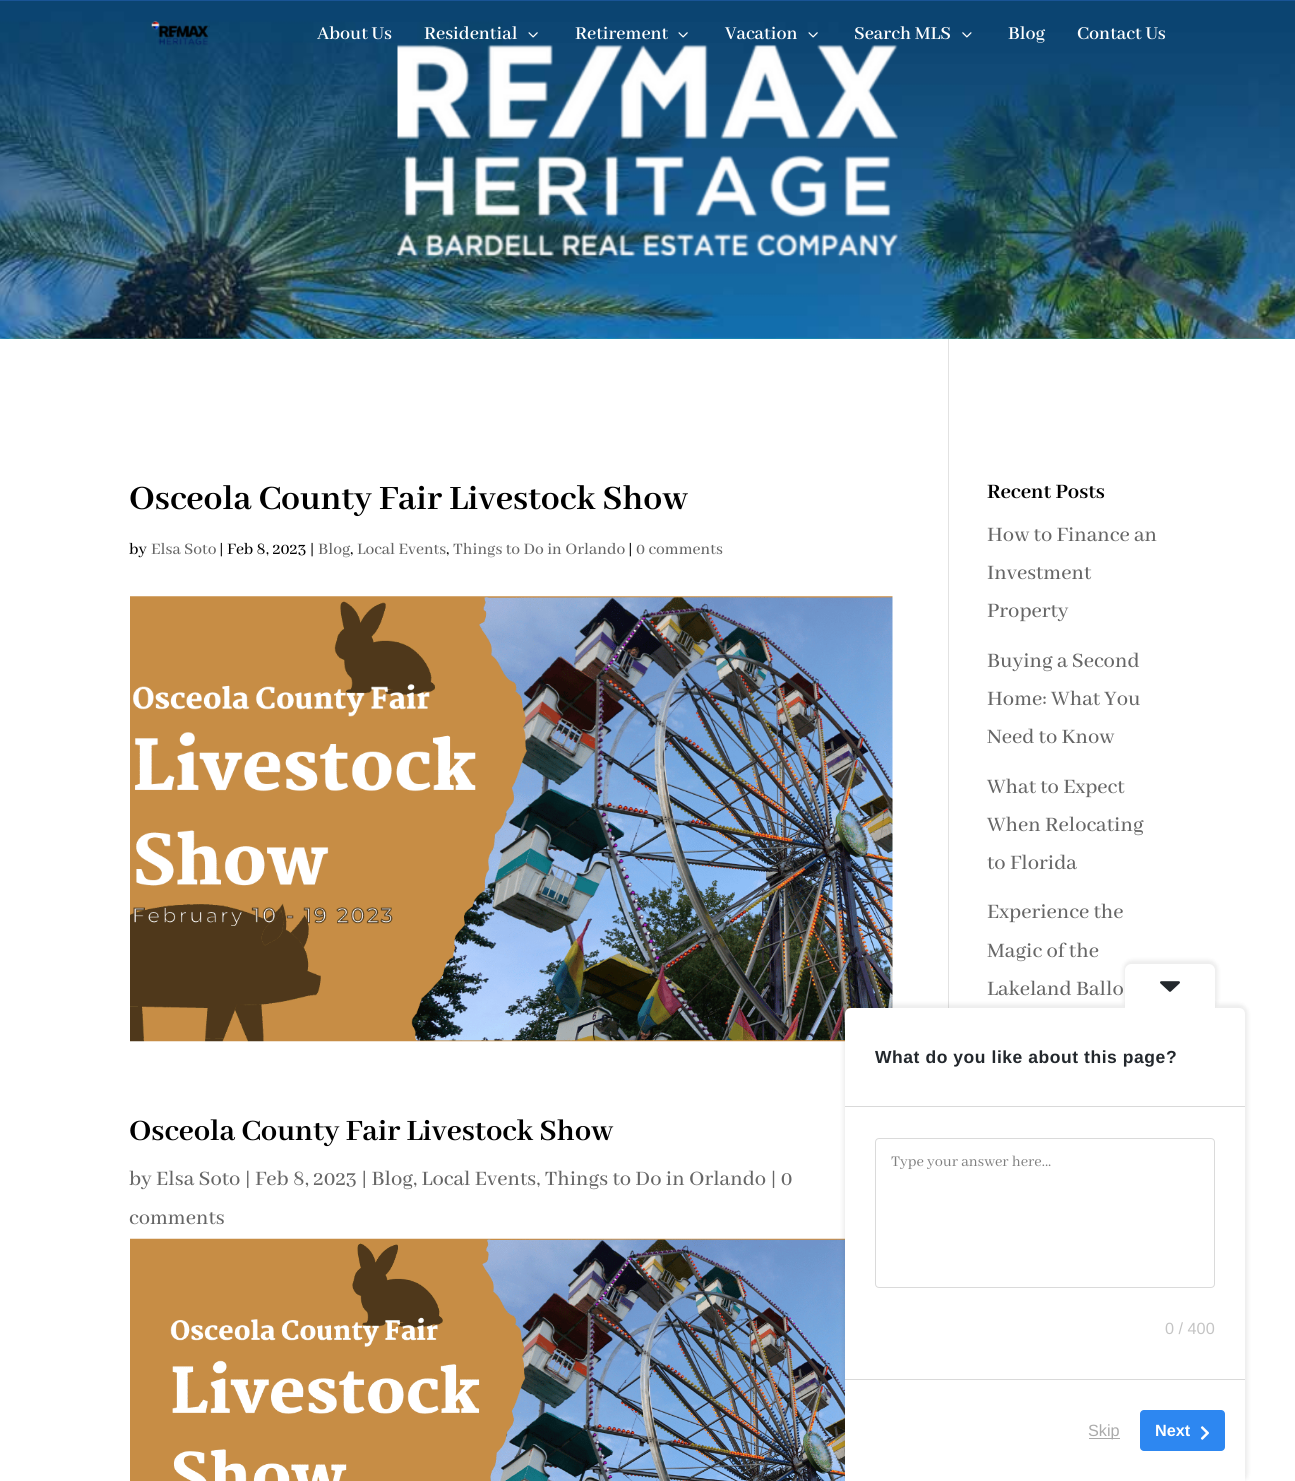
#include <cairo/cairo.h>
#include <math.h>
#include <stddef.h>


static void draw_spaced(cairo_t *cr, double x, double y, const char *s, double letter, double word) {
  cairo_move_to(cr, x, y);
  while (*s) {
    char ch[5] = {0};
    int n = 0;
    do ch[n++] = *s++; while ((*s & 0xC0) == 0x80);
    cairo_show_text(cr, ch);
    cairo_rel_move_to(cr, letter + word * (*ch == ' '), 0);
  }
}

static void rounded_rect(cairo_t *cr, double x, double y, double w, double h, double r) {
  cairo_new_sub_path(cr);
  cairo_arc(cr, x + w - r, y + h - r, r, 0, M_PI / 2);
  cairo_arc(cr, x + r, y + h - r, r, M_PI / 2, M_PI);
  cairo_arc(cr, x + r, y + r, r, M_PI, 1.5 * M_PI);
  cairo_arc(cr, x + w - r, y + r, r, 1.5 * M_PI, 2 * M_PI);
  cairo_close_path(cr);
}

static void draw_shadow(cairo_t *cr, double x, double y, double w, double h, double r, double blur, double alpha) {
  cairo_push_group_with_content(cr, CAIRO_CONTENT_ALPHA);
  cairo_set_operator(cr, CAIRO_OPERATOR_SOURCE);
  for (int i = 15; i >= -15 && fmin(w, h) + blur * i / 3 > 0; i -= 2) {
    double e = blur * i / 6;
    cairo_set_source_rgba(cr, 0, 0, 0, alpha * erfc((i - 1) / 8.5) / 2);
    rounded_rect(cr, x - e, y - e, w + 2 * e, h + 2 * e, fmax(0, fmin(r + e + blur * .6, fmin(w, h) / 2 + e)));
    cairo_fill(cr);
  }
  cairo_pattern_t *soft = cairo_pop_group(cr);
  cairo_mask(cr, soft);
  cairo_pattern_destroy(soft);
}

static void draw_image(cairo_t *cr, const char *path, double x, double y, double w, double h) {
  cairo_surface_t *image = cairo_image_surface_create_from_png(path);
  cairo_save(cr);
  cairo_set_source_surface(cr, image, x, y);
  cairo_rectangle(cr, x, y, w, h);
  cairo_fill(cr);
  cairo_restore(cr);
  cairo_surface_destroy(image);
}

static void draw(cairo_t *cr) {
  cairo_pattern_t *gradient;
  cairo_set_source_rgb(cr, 1, 1, 1);
  cairo_paint(cr);
  gradient = cairo_pattern_create_linear(648, 0, 648, 339);
  cairo_pattern_add_color_stop_rgba(gradient, 0, 34 / 255.0, 94 / 255.0, 173 / 255.0, 1);
  cairo_pattern_add_color_stop_rgba(gradient, 1, 41 / 255.0, 196 / 255.0, 169 / 255.0, 1);
  cairo_set_source(cr, gradient);
  cairo_pattern_destroy(gradient);
  cairo_rectangle(cr, 0, 0, 1295, 339);
  cairo_fill(cr);
  draw_image(cr, "images/1.png", 0, 0, 1295, 339);
  draw_image(cr, "images/2.png", 397, 44, 501, 213);
  draw_image(cr, "images/3.png", 151, 21, 59, 25);
  draw_image(cr, "images/4.png", 528, 32, 10, 6);
  draw_image(cr, "images/4.png", 678, 32, 10, 6);
  draw_image(cr, "images/4.png", 808, 32, 10, 6);
  draw_image(cr, "images/5.png", 962, 32, 10, 6);
  cairo_set_source_rgb(cr, 226 / 255.0, 226 / 255.0, 226 / 255.0);
  cairo_rectangle(cr, 948, 339, 1, 669);
  cairo_fill(cr);
  draw_image(cr, "images/6.png", 130, 596, 763, 446);
  draw_image(cr, "images/7.png", 130, 1238, 715, 243);
  cairo_set_source_rgb(cr, 0, 0, 0);
  draw_shadow(cr, 843, 1004, 405, 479, 9, 2, 0.07);
  cairo_set_source_rgb(cr, 1, 1, 1);
  cairo_new_path(cr);
  cairo_move_to(cr, 851, 1008);
  cairo_line_to(cr, 1239, 1008);
  cairo_curve_to(cr, 1242.5, 1008, 1245, 1010.5, 1245, 1014);
  cairo_line_to(cr, 1245, 1481);
  cairo_line_to(cr, 845, 1481);
  cairo_line_to(cr, 845, 1014);
  cairo_curve_to(cr, 845, 1010.5, 847.5, 1008, 851, 1008);
  cairo_close_path(cr);
  cairo_fill(cr);
  cairo_save(cr);
  cairo_new_path(cr);
  cairo_move_to(cr, 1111.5, 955.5);
  cairo_line_to(cr, 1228.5, 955.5);
  cairo_line_to(cr, 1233, 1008);
  cairo_line_to(cr, 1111.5, 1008);
  cairo_close_path(cr);
  cairo_clip(cr);
  cairo_set_source_rgb(cr, 0, 0, 0);
  draw_shadow(cr, 1123, 960, 95, 49, 9, 2, 0.07);
  cairo_restore(cr);
  cairo_new_path(cr);
  cairo_move_to(cr, 1131, 964);
  cairo_line_to(cr, 1209, 964);
  cairo_curve_to(cr, 1212, 964, 1215, 967, 1215, 970);
  cairo_line_to(cr, 1215, 1008);
  cairo_line_to(cr, 1125, 1008);
  cairo_line_to(cr, 1125, 970);
  cairo_curve_to(cr, 1125, 967, 1128, 964, 1131, 964);
  cairo_close_path(cr);
  cairo_fill(cr);
  draw_image(cr, "images/8.png", 1160, 981, 20, 11);
  cairo_set_source_rgb(cr, 217 / 255.0, 217 / 255.0, 217 / 255.0);
  cairo_rectangle(cr, 845, 1106, 400, 1);
  cairo_fill(cr);
  cairo_rectangle(cr, 845, 1379, 400, 1);
  cairo_fill(cr);
  rounded_rect(cr, 875.5, 1138.5, 339, 149, 3.5);
  cairo_set_source_rgb(cr, 218 / 255.0, 218 / 255.0, 218 / 255.0);
  cairo_set_line_width(cr, 1);
  cairo_stroke(cr);
  cairo_set_source_rgb(cr, 170 / 255.0, 170 / 255.0, 170 / 255.0);
  cairo_rectangle(cr, 1089, 1438, 31, 1);
  cairo_fill(cr);
  cairo_set_source_rgb(cr, 45 / 255.0, 135 / 255.0, 241 / 255.0);
  rounded_rect(cr, 1140, 1410, 85, 41, 4);
  cairo_fill(cr);
  draw_image(cr, "images/9.png", 1200, 1426, 9, 14);
  cairo_select_font_face(cr, "Abhaya Libre SemiBold SemiBold", CAIRO_FONT_SLANT_NORMAL, CAIRO_FONT_WEIGHT_NORMAL);
  cairo_set_font_size(cr, 20);
  cairo_set_source_rgb(cr, 1, 1, 1);
  cairo_move_to(cr, 317, 39);
  cairo_show_text(cr, "About Us");
  cairo_move_to(cr, 424, 39);
  cairo_show_text(cr, "Residential");
  cairo_move_to(cr, 575, 39);
  cairo_show_text(cr, "Retirement");
  cairo_move_to(cr, 725, 39);
  cairo_show_text(cr, "Vacation");
  cairo_move_to(cr, 854, 39);
  cairo_show_text(cr, "Search MLS");
  cairo_move_to(cr, 1008, 39);
  cairo_show_text(cr, "Blog");
  cairo_move_to(cr, 1077, 39);
  cairo_show_text(cr, "Contact Us");
  cairo_select_font_face(cr, "Abhaya Libre", CAIRO_FONT_SLANT_NORMAL, CAIRO_FONT_WEIGHT_BOLD);
  cairo_set_font_size(cr, 37.5);
  cairo_set_source_rgb(cr, 0, 0, 0);
  cairo_move_to(cr, 129, 509);
  cairo_show_text(cr, "Osceola County Fair Livestock Show");
  cairo_select_font_face(cr, "Abhaya Libre Medium Medium", CAIRO_FONT_SLANT_NORMAL, CAIRO_FONT_WEIGHT_NORMAL);
  cairo_set_font_size(cr, 17.5);
  cairo_move_to(cr, 129, 554);
  cairo_show_text(cr, "by");
  cairo_set_source_rgb(cr, 102 / 255.0, 102 / 255.0, 102 / 255.0);
  cairo_move_to(cr, 151, 554);
  cairo_show_text(cr, "Elsa Soto");
  cairo_set_source_rgb(cr, 0, 0, 0);
  cairo_move_to(cr, 219, 554);
  cairo_show_text(cr, "| Feb 8, 2023 |");
  cairo_set_source_rgb(cr, 102 / 255.0, 102 / 255.0, 102 / 255.0);
  cairo_move_to(cr, 318, 554);
  cairo_show_text(cr, "Blog");
  cairo_set_source_rgb(cr, 0, 0, 0);
  cairo_move_to(cr, 350, 554);
  cairo_show_text(cr, ",");
  cairo_set_source_rgb(cr, 102 / 255.0, 102 / 255.0, 102 / 255.0);
  cairo_move_to(cr, 357, 554);
  cairo_show_text(cr, "Local Events");
  cairo_set_source_rgb(cr, 0, 0, 0);
  cairo_move_to(cr, 446, 554);
  cairo_show_text(cr, ",");
  cairo_set_source_rgb(cr, 102 / 255.0, 102 / 255.0, 102 / 255.0);
  cairo_move_to(cr, 453, 554);
  cairo_show_text(cr, "Things to Do in Orlando");
  cairo_set_source_rgb(cr, 0, 0, 0);
  cairo_move_to(cr, 628, 554);
  cairo_show_text(cr, "|");
  cairo_set_source_rgb(cr, 102 / 255.0, 102 / 255.0, 102 / 255.0);
  cairo_move_to(cr, 636, 554);
  cairo_show_text(cr, "0 comments");
  cairo_select_font_face(cr, "Abhaya Libre", CAIRO_FONT_SLANT_NORMAL, CAIRO_FONT_WEIGHT_BOLD);
  cairo_set_font_size(cr, 32.5);
  cairo_set_source_rgb(cr, 0, 0, 0);
  cairo_move_to(cr, 129, 1140);
  cairo_show_text(cr, "Osceola County Fair Livestock Show");
  cairo_select_font_face(cr, "Abhaya Libre Medium Medium", CAIRO_FONT_SLANT_NORMAL, CAIRO_FONT_WEIGHT_NORMAL);
  cairo_set_font_size(cr, 22.5);
  cairo_set_source_rgb(cr, 102 / 255.0, 102 / 255.0, 102 / 255.0);
  cairo_move_to(cr, 129, 1185);
  cairo_show_text(cr, "by Elsa Soto | Feb 8, 2023 | Blog, Local Events, Things to Do in Orlando | 0");
  cairo_move_to(cr, 129, 1224);
  cairo_show_text(cr, "comments");
  cairo_select_font_face(cr, "Abhaya Libre", CAIRO_FONT_SLANT_NORMAL, CAIRO_FONT_WEIGHT_BOLD);
  cairo_set_source_rgb(cr, 0, 0, 0);
  cairo_move_to(cr, 987, 498);
  cairo_show_text(cr, "Recent Posts");
  cairo_select_font_face(cr, "Abhaya Libre Medium Medium", CAIRO_FONT_SLANT_NORMAL, CAIRO_FONT_WEIGHT_NORMAL);
  cairo_set_source_rgb(cr, 102 / 255.0, 102 / 255.0, 102 / 255.0);
  cairo_move_to(cr, 987, 541);
  cairo_show_text(cr, "How to Finance an");
  cairo_move_to(cr, 987, 579);
  cairo_show_text(cr, "Investment");
  cairo_move_to(cr, 987, 617);
  cairo_show_text(cr, "Property");
  cairo_move_to(cr, 987, 667);
  cairo_show_text(cr, "Buying a Second");
  cairo_move_to(cr, 987, 705);
  cairo_show_text(cr, "Home: What You");
  cairo_move_to(cr, 987, 743);
  cairo_show_text(cr, "Need to Know");
  cairo_move_to(cr, 987, 793);
  cairo_show_text(cr, "What to Expect");
  cairo_move_to(cr, 987, 831);
  cairo_show_text(cr, "When Relocating");
  cairo_move_to(cr, 987, 869);
  cairo_show_text(cr, "to Florida");
  cairo_move_to(cr, 987, 918);
  cairo_show_text(cr, "Experience the");
  cairo_move_to(cr, 987, 957);
  cairo_show_text(cr, "Magic of the");
  cairo_move_to(cr, 987, 995);
  cairo_show_text(cr, "Lakeland Ballo");
  cairo_select_font_face(cr, "Liberation Sans", CAIRO_FONT_SLANT_NORMAL, CAIRO_FONT_WEIGHT_BOLD);
  cairo_set_font_size(cr, 17.5);
  cairo_set_source_rgb(cr, 35 / 255.0, 40 / 255.0, 45 / 255.0);
  draw_spaced(cr, 875, 1063, "What do you like about this page?", 0.55, 0);
  cairo_select_font_face(cr, "Abhaya Libre", CAIRO_FONT_SLANT_NORMAL, CAIRO_FONT_WEIGHT_NORMAL);
  cairo_set_font_size(cr, 16.25);
  cairo_set_source_rgb(cr, 126 / 255.0, 126 / 255.0, 126 / 255.0);
  cairo_move_to(cr, 891, 1166);
  cairo_show_text(cr, "Type your answer here...");
  cairo_select_font_face(cr, "Liberation Sans", CAIRO_FONT_SLANT_NORMAL, CAIRO_FONT_WEIGHT_NORMAL);
  cairo_set_source_rgb(cr, 196 / 255.0, 196 / 255.0, 196 / 255.0);
  cairo_move_to(cr, 1165, 1334);
  cairo_show_text(cr, "0 / 400");
  cairo_set_source_rgb(cr, 170 / 255.0, 170 / 255.0, 170 / 255.0);
  cairo_move_to(cr, 1088, 1436);
  cairo_show_text(cr, "Skip");
  cairo_select_font_face(cr, "Liberation Sans", CAIRO_FONT_SLANT_NORMAL, CAIRO_FONT_WEIGHT_BOLD);
  cairo_set_source_rgb(cr, 1, 1, 1);
  cairo_move_to(cr, 1155, 1436);
  cairo_show_text(cr, "Next");
}

int main(void) {
  cairo_surface_t *surface = cairo_image_surface_create(CAIRO_FORMAT_RGB24, 1295, 1481);
  cairo_t *cr = cairo_create(surface);
  cairo_font_options_t *options = cairo_font_options_create();
  cairo_font_options_set_hint_metrics(options, CAIRO_HINT_METRICS_OFF);
  cairo_font_options_set_hint_style(options, CAIRO_HINT_STYLE_NONE);
  cairo_set_font_options(cr, options);
  cairo_set_miter_limit(cr, 4);
  draw(cr);
  cairo_surface_write_to_png(surface, "out.png");
  cairo_font_options_destroy(options);
  cairo_destroy(cr);
  cairo_surface_destroy(surface);
  return 0;
}
